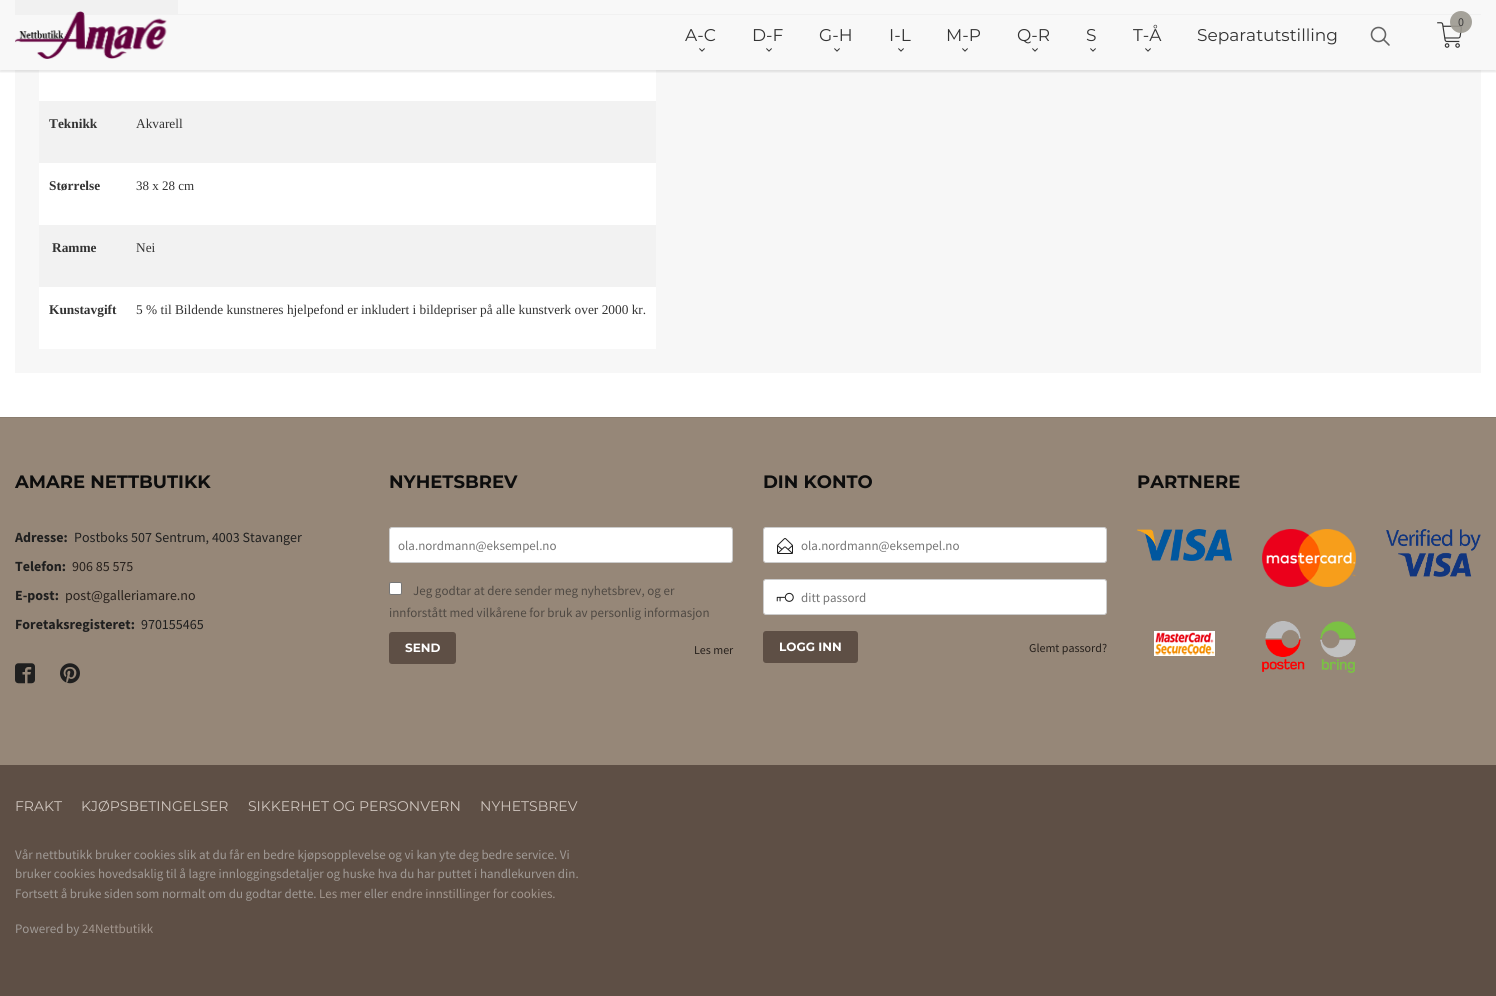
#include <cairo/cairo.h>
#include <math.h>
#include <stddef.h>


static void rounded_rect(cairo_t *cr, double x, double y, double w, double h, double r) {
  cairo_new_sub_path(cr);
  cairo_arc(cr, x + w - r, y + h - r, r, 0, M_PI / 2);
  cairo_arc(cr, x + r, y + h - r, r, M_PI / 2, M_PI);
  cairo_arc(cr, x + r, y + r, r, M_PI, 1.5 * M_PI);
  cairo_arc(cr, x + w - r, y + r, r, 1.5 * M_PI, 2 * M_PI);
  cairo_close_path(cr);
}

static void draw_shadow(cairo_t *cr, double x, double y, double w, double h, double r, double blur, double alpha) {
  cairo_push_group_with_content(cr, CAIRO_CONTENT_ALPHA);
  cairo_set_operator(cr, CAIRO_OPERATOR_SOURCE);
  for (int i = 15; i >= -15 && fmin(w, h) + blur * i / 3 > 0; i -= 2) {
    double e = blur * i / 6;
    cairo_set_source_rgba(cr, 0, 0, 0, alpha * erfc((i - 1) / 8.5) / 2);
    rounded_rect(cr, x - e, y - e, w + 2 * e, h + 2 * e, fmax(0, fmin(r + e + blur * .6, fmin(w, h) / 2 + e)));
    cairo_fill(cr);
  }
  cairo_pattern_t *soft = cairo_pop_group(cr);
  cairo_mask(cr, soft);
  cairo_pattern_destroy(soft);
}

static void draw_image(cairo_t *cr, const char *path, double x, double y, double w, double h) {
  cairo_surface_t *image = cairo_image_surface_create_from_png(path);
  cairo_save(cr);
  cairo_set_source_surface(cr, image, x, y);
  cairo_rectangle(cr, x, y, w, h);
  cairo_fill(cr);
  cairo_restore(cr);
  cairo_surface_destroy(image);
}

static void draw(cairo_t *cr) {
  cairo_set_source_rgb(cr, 1, 1, 1);
  cairo_paint(cr);
  cairo_set_source_rgb(cr, 248 / 255.0, 248 / 255.0, 248 / 255.0);
  cairo_rectangle(cr, 0, 0, 1496, 70);
  cairo_fill(cr);
  cairo_set_source_rgb(cr, 241 / 255.0, 241 / 255.0, 241 / 255.0);
  cairo_rectangle(cr, 15, 0, 163, 14);
  cairo_fill(cr);
  cairo_set_source_rgb(cr, 247 / 255.0, 247 / 255.0, 247 / 255.0);
  cairo_rectangle(cr, 15, 70, 1466, 303);
  cairo_fill(cr);
  cairo_set_source_rgb(cr, 241 / 255.0, 241 / 255.0, 241 / 255.0);
  cairo_rectangle(cr, 15, 14, 1466, 1);
  cairo_fill(cr);
  cairo_set_source_rgb(cr, 1, 1, 1);
  cairo_rectangle(cr, 39, 70, 617, 279);
  cairo_fill(cr);
  cairo_save(cr);
  cairo_rectangle(cr, 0, 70, 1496, 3);
  cairo_clip(cr);
  cairo_set_source_rgb(cr, 0, 0, 0);
  draw_shadow(cr, 0, 2, 1496, 70, 0, 1, 0.1);
  cairo_restore(cr);
  draw_image(cr, "images/1.png", 1437, 22, 25, 26);
  cairo_set_source_rgba(cr, 157 / 255.0, 153 / 255.0, 144 / 255.0, 0.9);
  cairo_arc(cr, 1461, 22, 11, 0, 2 * M_PI);
  cairo_fill(cr);
  draw_image(cr, "images/2.png", 15, 11, 152, 48);
  draw_image(cr, "images/3.png", 699, 48, 6, 4);
  draw_image(cr, "images/3.png", 766, 48, 6, 4);
  draw_image(cr, "images/3.png", 834, 48, 6, 4);
  draw_image(cr, "images/3.png", 898, 48, 6, 4);
  draw_image(cr, "images/3.png", 962, 48, 6, 4);
  draw_image(cr, "images/3.png", 1032, 48, 6, 4);
  draw_image(cr, "images/3.png", 1090, 48, 6, 4);
  draw_image(cr, "images/3.png", 1145, 48, 6, 4);
  cairo_arc(cr, 1378.5, 34.5, 7, 0, 2 * M_PI);
  cairo_set_source_rgb(cr, 100 / 255.0, 100 / 255.0, 100 / 255.0);
  cairo_set_line_width(cr, 1.6);
  cairo_stroke(cr);
  cairo_new_path(cr);
  cairo_move_to(cr, 1389, 45);
  cairo_line_to(cr, 1383.5, 39.5);
  cairo_set_line_cap(cr, CAIRO_LINE_CAP_ROUND);
  cairo_stroke(cr);
  cairo_set_source_rgb(cr, 242 / 255.0, 242 / 255.0, 242 / 255.0);
  cairo_rectangle(cr, 39, 101, 617, 62);
  cairo_fill(cr);
  cairo_rectangle(cr, 39, 225, 617, 62);
  cairo_fill(cr);
  cairo_set_source_rgb(cr, 150 / 255.0, 135 / 255.0, 120 / 255.0);
  cairo_rectangle(cr, 0, 418, 1496, 347);
  cairo_fill(cr);
  cairo_set_source_rgb(cr, 138 / 255.0, 125 / 255.0, 111 / 255.0);
  cairo_rectangle(cr, 0, 417, 1496, 1);
  cairo_fill(cr);
  draw_image(cr, "images/4.png", 15, 663, 20, 21);
  draw_image(cr, "images/5.png", 60, 663, 20, 21);
  cairo_set_source_rgb(cr, 1, 1, 1);
  rounded_rect(cr, 389.5, 527.5, 343, 35, 2.5);
  cairo_fill_preserve(cr);
  cairo_set_source_rgb(cr, 204 / 255.0, 204 / 255.0, 204 / 255.0);
  cairo_set_line_width(cr, 1);
  cairo_set_line_cap(cr, CAIRO_LINE_CAP_BUTT);
  cairo_stroke(cr);
  cairo_set_source_rgb(cr, 1, 1, 1);
  rounded_rect(cr, 389.5, 582.5, 12, 12, 1.5);
  cairo_fill_preserve(cr);
  cairo_set_source_rgb(cr, 118 / 255.0, 118 / 255.0, 118 / 255.0);
  cairo_stroke(cr);
  cairo_set_source_rgb(cr, 94 / 255.0, 79 / 255.0, 69 / 255.0);
  rounded_rect(cr, 389, 632, 67, 32, 3);
  cairo_fill(cr);
  cairo_set_source_rgb(cr, 1, 1, 1);
  rounded_rect(cr, 763.5, 527.5, 343, 35, 2.5);
  cairo_fill_preserve(cr);
  cairo_set_source_rgb(cr, 204 / 255.0, 204 / 255.0, 204 / 255.0);
  cairo_stroke(cr);
  draw_image(cr, "images/6.png", 777, 538, 16, 16);
  cairo_set_source_rgb(cr, 1, 1, 1);
  rounded_rect(cr, 763.5, 579.5, 343, 35, 2.5);
  cairo_fill_preserve(cr);
  cairo_set_source_rgb(cr, 204 / 255.0, 204 / 255.0, 204 / 255.0);
  cairo_stroke(cr);
  draw_image(cr, "images/7.png", 776, 592, 18, 10);
  cairo_set_source_rgb(cr, 94 / 255.0, 79 / 255.0, 69 / 255.0);
  rounded_rect(cr, 763, 631, 95, 32, 3);
  cairo_fill(cr);
  draw_image(cr, "images/8.png", 1137, 529, 95, 32);
  draw_image(cr, "images/9.png", 1262, 529, 94, 58);
  draw_image(cr, "images/10.png", 1386, 529, 95, 48);
  draw_image(cr, "images/11.png", 1154, 631, 61, 25);
  draw_image(cr, "images/12.png", 1262, 621, 94, 52);
  cairo_rectangle(cr, 0, 765, 1496, 231);
  cairo_fill(cr);
  cairo_select_font_face(cr, "Source Sans Pro", CAIRO_FONT_SLANT_NORMAL, CAIRO_FONT_WEIGHT_NORMAL);
  cairo_set_font_size(cr, 12);
  cairo_set_source_rgb(cr, 60 / 255.0, 59 / 255.0, 59 / 255.0);
  cairo_move_to(cr, 1458, 26);
  cairo_show_text(cr, "0");
  cairo_select_font_face(cr, "Montserrat", CAIRO_FONT_SLANT_NORMAL, CAIRO_FONT_WEIGHT_NORMAL);
  cairo_set_font_size(cr, 17);
  cairo_set_source_rgb(cr, 51 / 255.0, 51 / 255.0, 51 / 255.0);
  cairo_move_to(cr, 685, 41);
  cairo_show_text(cr, "A-C");
  cairo_move_to(cr, 752, 41);
  cairo_show_text(cr, "D-F");
  cairo_move_to(cr, 819, 41);
  cairo_show_text(cr, "G-H");
  cairo_move_to(cr, 889, 41);
  cairo_show_text(cr, "I-L");
  cairo_move_to(cr, 946, 41);
  cairo_show_text(cr, "M-P");
  cairo_move_to(cr, 1017, 41);
  cairo_show_text(cr, "Q-R");
  cairo_move_to(cr, 1086, 41);
  cairo_show_text(cr, "S");
  cairo_move_to(cr, 1133, 41);
  cairo_show_text(cr, "T-Å");
  cairo_move_to(cr, 1197, 41);
  cairo_show_text(cr, "Separatutstilling");
  cairo_select_font_face(cr, "Liberation Serif", CAIRO_FONT_SLANT_NORMAL, CAIRO_FONT_WEIGHT_BOLD);
  cairo_set_font_size(cr, 13.35);
  cairo_move_to(cr, 49, 128);
  cairo_show_text(cr, "Teknikk");
  cairo_select_font_face(cr, "Liberation Serif", CAIRO_FONT_SLANT_NORMAL, CAIRO_FONT_WEIGHT_NORMAL);
  cairo_move_to(cr, 136, 128);
  cairo_show_text(cr, "Akvarell");
  cairo_select_font_face(cr, "Liberation Serif", CAIRO_FONT_SLANT_NORMAL, CAIRO_FONT_WEIGHT_BOLD);
  cairo_move_to(cr, 49, 190);
  cairo_show_text(cr, "Størrelse");
  cairo_select_font_face(cr, "Liberation Serif", CAIRO_FONT_SLANT_NORMAL, CAIRO_FONT_WEIGHT_NORMAL);
  cairo_set_font_size(cr, 13);
  cairo_move_to(cr, 136, 190);
  cairo_show_text(cr, "38 x 28 cm");
  cairo_select_font_face(cr, "Liberation Serif", CAIRO_FONT_SLANT_NORMAL, CAIRO_FONT_WEIGHT_BOLD);
  cairo_set_font_size(cr, 13.35);
  cairo_move_to(cr, 52, 252);
  cairo_show_text(cr, "Ramme");
  cairo_select_font_face(cr, "Liberation Serif", CAIRO_FONT_SLANT_NORMAL, CAIRO_FONT_WEIGHT_NORMAL);
  cairo_move_to(cr, 136, 252);
  cairo_show_text(cr, "Nei");
  cairo_select_font_face(cr, "Liberation Serif", CAIRO_FONT_SLANT_NORMAL, CAIRO_FONT_WEIGHT_BOLD);
  cairo_move_to(cr, 49, 314);
  cairo_show_text(cr, "Kunstavgift");
  cairo_select_font_face(cr, "Liberation Serif", CAIRO_FONT_SLANT_NORMAL, CAIRO_FONT_WEIGHT_NORMAL);
  cairo_move_to(cr, 136, 314);
  cairo_show_text(cr, "5 % til Bildende kunstneres hjelpefond er inkludert i bildepriser på alle kunstverk over 2000 kr.");
  cairo_select_font_face(cr, "Montserrat", CAIRO_FONT_SLANT_NORMAL, CAIRO_FONT_WEIGHT_BOLD);
  cairo_set_font_size(cr, 18);
  cairo_set_source_rgb(cr, 13 / 255.0, 13 / 255.0, 13 / 255.0);
  cairo_move_to(cr, 15, 488);
  cairo_show_text(cr, "AMARE NETTBUTIKK");
  cairo_select_font_face(cr, "Source Sans Pro", CAIRO_FONT_SLANT_NORMAL, CAIRO_FONT_WEIGHT_BOLD);
  cairo_set_font_size(cr, 14);
  cairo_set_source_rgb(cr, 31 / 255.0, 31 / 255.0, 31 / 255.0);
  cairo_move_to(cr, 15, 542);
  cairo_show_text(cr, "Adresse:");
  cairo_select_font_face(cr, "Source Sans Pro", CAIRO_FONT_SLANT_NORMAL, CAIRO_FONT_WEIGHT_NORMAL);
  cairo_move_to(cr, 74, 542);
  cairo_show_text(cr, "Postboks 507 Sentrum, 4003 Stavanger");
  cairo_select_font_face(cr, "Source Sans Pro", CAIRO_FONT_SLANT_NORMAL, CAIRO_FONT_WEIGHT_BOLD);
  cairo_move_to(cr, 15, 571);
  cairo_show_text(cr, "Telefon:");
  cairo_select_font_face(cr, "Source Sans Pro", CAIRO_FONT_SLANT_NORMAL, CAIRO_FONT_WEIGHT_NORMAL);
  cairo_set_source_rgb(cr, 38 / 255.0, 32 / 255.0, 28 / 255.0);
  cairo_move_to(cr, 72, 571);
  cairo_show_text(cr, "906 85 575");
  cairo_select_font_face(cr, "Source Sans Pro", CAIRO_FONT_SLANT_NORMAL, CAIRO_FONT_WEIGHT_BOLD);
  cairo_set_source_rgb(cr, 31 / 255.0, 31 / 255.0, 31 / 255.0);
  cairo_move_to(cr, 15, 600);
  cairo_show_text(cr, "E-post:");
  cairo_select_font_face(cr, "Source Sans Pro", CAIRO_FONT_SLANT_NORMAL, CAIRO_FONT_WEIGHT_NORMAL);
  cairo_set_source_rgb(cr, 38 / 255.0, 32 / 255.0, 28 / 255.0);
  cairo_move_to(cr, 65, 600);
  cairo_show_text(cr, "post@galleriamare.no");
  cairo_select_font_face(cr, "Source Sans Pro", CAIRO_FONT_SLANT_NORMAL, CAIRO_FONT_WEIGHT_BOLD);
  cairo_set_source_rgb(cr, 31 / 255.0, 31 / 255.0, 31 / 255.0);
  cairo_move_to(cr, 15, 629);
  cairo_show_text(cr, "Foretaksregisteret:");
  cairo_select_font_face(cr, "Source Sans Pro", CAIRO_FONT_SLANT_NORMAL, CAIRO_FONT_WEIGHT_NORMAL);
  cairo_move_to(cr, 141, 629);
  cairo_show_text(cr, "970155465");
  cairo_select_font_face(cr, "Montserrat", CAIRO_FONT_SLANT_NORMAL, CAIRO_FONT_WEIGHT_BOLD);
  cairo_set_font_size(cr, 18);
  cairo_set_source_rgb(cr, 13 / 255.0, 13 / 255.0, 13 / 255.0);
  cairo_move_to(cr, 389, 488);
  cairo_show_text(cr, "NYHETSBREV");
  cairo_select_font_face(cr, "Source Sans Pro", CAIRO_FONT_SLANT_NORMAL, CAIRO_FONT_WEIGHT_NORMAL);
  cairo_set_font_size(cr, 13);
  cairo_set_source_rgb(cr, 117 / 255.0, 117 / 255.0, 117 / 255.0);
  cairo_move_to(cr, 398, 550);
  cairo_show_text(cr, "ola.nordmann@eksempel.no");
  cairo_set_source_rgb(cr, 79 / 255.0, 73 / 255.0, 67 / 255.0);
  cairo_move_to(cr, 413, 595);
  cairo_show_text(cr, "Jeg godtar at dere sender meg nyhetsbrev, og er");
  cairo_move_to(cr, 389, 617);
  cairo_show_text(cr, "innforstått med vilkårene for bruk av personlig informasjon");
  cairo_select_font_face(cr, "Montserrat", CAIRO_FONT_SLANT_NORMAL, CAIRO_FONT_WEIGHT_BOLD);
  cairo_set_font_size(cr, 12);
  cairo_set_source_rgb(cr, 1, 1, 1);
  cairo_move_to(cr, 405, 652);
  cairo_show_text(cr, "SEND");
  cairo_select_font_face(cr, "Source Sans Pro", CAIRO_FONT_SLANT_NORMAL, CAIRO_FONT_WEIGHT_NORMAL);
  cairo_set_source_rgb(cr, 38 / 255.0, 32 / 255.0, 28 / 255.0);
  cairo_move_to(cr, 694, 654);
  cairo_show_text(cr, "Les mer");
  cairo_select_font_face(cr, "Montserrat", CAIRO_FONT_SLANT_NORMAL, CAIRO_FONT_WEIGHT_BOLD);
  cairo_set_font_size(cr, 18);
  cairo_set_source_rgb(cr, 13 / 255.0, 13 / 255.0, 13 / 255.0);
  cairo_move_to(cr, 763, 488);
  cairo_show_text(cr, "DIN KONTO");
  cairo_select_font_face(cr, "Source Sans Pro", CAIRO_FONT_SLANT_NORMAL, CAIRO_FONT_WEIGHT_NORMAL);
  cairo_set_font_size(cr, 13);
  cairo_set_source_rgb(cr, 117 / 255.0, 117 / 255.0, 117 / 255.0);
  cairo_move_to(cr, 801, 550);
  cairo_show_text(cr, "ola.nordmann@eksempel.no");
  cairo_move_to(cr, 801, 602);
  cairo_show_text(cr, "ditt passord");
  cairo_select_font_face(cr, "Montserrat", CAIRO_FONT_SLANT_NORMAL, CAIRO_FONT_WEIGHT_BOLD);
  cairo_set_font_size(cr, 12);
  cairo_set_source_rgb(cr, 1, 1, 1);
  cairo_move_to(cr, 779, 651);
  cairo_show_text(cr, "LOGG INN");
  cairo_select_font_face(cr, "Source Sans Pro", CAIRO_FONT_SLANT_NORMAL, CAIRO_FONT_WEIGHT_NORMAL);
  cairo_set_source_rgb(cr, 38 / 255.0, 32 / 255.0, 28 / 255.0);
  cairo_move_to(cr, 1029, 652);
  cairo_show_text(cr, "Glemt passord?");
  cairo_select_font_face(cr, "Montserrat", CAIRO_FONT_SLANT_NORMAL, CAIRO_FONT_WEIGHT_BOLD);
  cairo_set_font_size(cr, 18);
  cairo_set_source_rgb(cr, 13 / 255.0, 13 / 255.0, 13 / 255.0);
  cairo_move_to(cr, 1137, 488);
  cairo_show_text(cr, "PARTNERE");
  cairo_select_font_face(cr, "Montserrat", CAIRO_FONT_SLANT_NORMAL, CAIRO_FONT_WEIGHT_NORMAL);
  cairo_set_font_size(cr, 14);
  cairo_set_source_rgb(cr, 207 / 255.0, 197 / 255.0, 190 / 255.0);
  cairo_move_to(cr, 15, 811);
  cairo_show_text(cr, "FRAKT");
  cairo_move_to(cr, 81, 811);
  cairo_show_text(cr, "KJØPSBETINGELSER");
  cairo_move_to(cr, 248, 811);
  cairo_show_text(cr, "SIKKERHET OG PERSONVERN");
  cairo_move_to(cr, 480, 811);
  cairo_show_text(cr, "NYHETSBREV");
  cairo_select_font_face(cr, "Source Sans Pro", CAIRO_FONT_SLANT_NORMAL, CAIRO_FONT_WEIGHT_NORMAL);
  cairo_set_font_size(cr, 13);
  cairo_set_source_rgb(cr, 160 / 255.0, 154 / 255.0, 150 / 255.0);
  cairo_move_to(cr, 15, 859);
  cairo_show_text(cr, "Vår nettbutikk bruker cookies slik at du får en bedre kjøpsopplevelse og vi kan yte deg bedre service. Vi");
  cairo_move_to(cr, 15, 878);
  cairo_show_text(cr, "bruker cookies hovedsaklig til å lagre innloggingsdetaljer og huske hva du har puttet i handlekurven din.");
  cairo_move_to(cr, 15, 898);
  cairo_show_text(cr, "Fortsett å bruke siden som normalt om du godtar dette.");
  cairo_set_source_rgb(cr, 162 / 255.0, 150 / 255.0, 142 / 255.0);
  cairo_move_to(cr, 319, 898);
  cairo_show_text(cr, "Les mer");
  cairo_set_source_rgb(cr, 160 / 255.0, 154 / 255.0, 150 / 255.0);
  cairo_move_to(cr, 364, 898);
  cairo_show_text(cr, "eller");
  cairo_set_source_rgb(cr, 162 / 255.0, 150 / 255.0, 142 / 255.0);
  cairo_move_to(cr, 391, 898);
  cairo_show_text(cr, "endre innstillinger for cookies.");
  cairo_set_source_rgb(cr, 160 / 255.0, 154 / 255.0, 150 / 255.0);
  cairo_move_to(cr, 15, 933);
  cairo_show_text(cr, "Powered by");
  cairo_set_source_rgb(cr, 162 / 255.0, 150 / 255.0, 142 / 255.0);
  cairo_move_to(cr, 82, 933);
  cairo_show_text(cr, "24Nettbutikk");
}

int main(void) {
  cairo_surface_t *surface = cairo_image_surface_create(CAIRO_FORMAT_RGB24, 1496, 996);
  cairo_t *cr = cairo_create(surface);
  cairo_font_options_t *options = cairo_font_options_create();
  cairo_font_options_set_hint_metrics(options, CAIRO_HINT_METRICS_OFF);
  cairo_font_options_set_hint_style(options, CAIRO_HINT_STYLE_NONE);
  cairo_set_font_options(cr, options);
  cairo_set_miter_limit(cr, 4);
  draw(cr);
  cairo_surface_write_to_png(surface, "out.png");
  cairo_font_options_destroy(options);
  cairo_destroy(cr);
  cairo_surface_destroy(surface);
  return 0;
}
